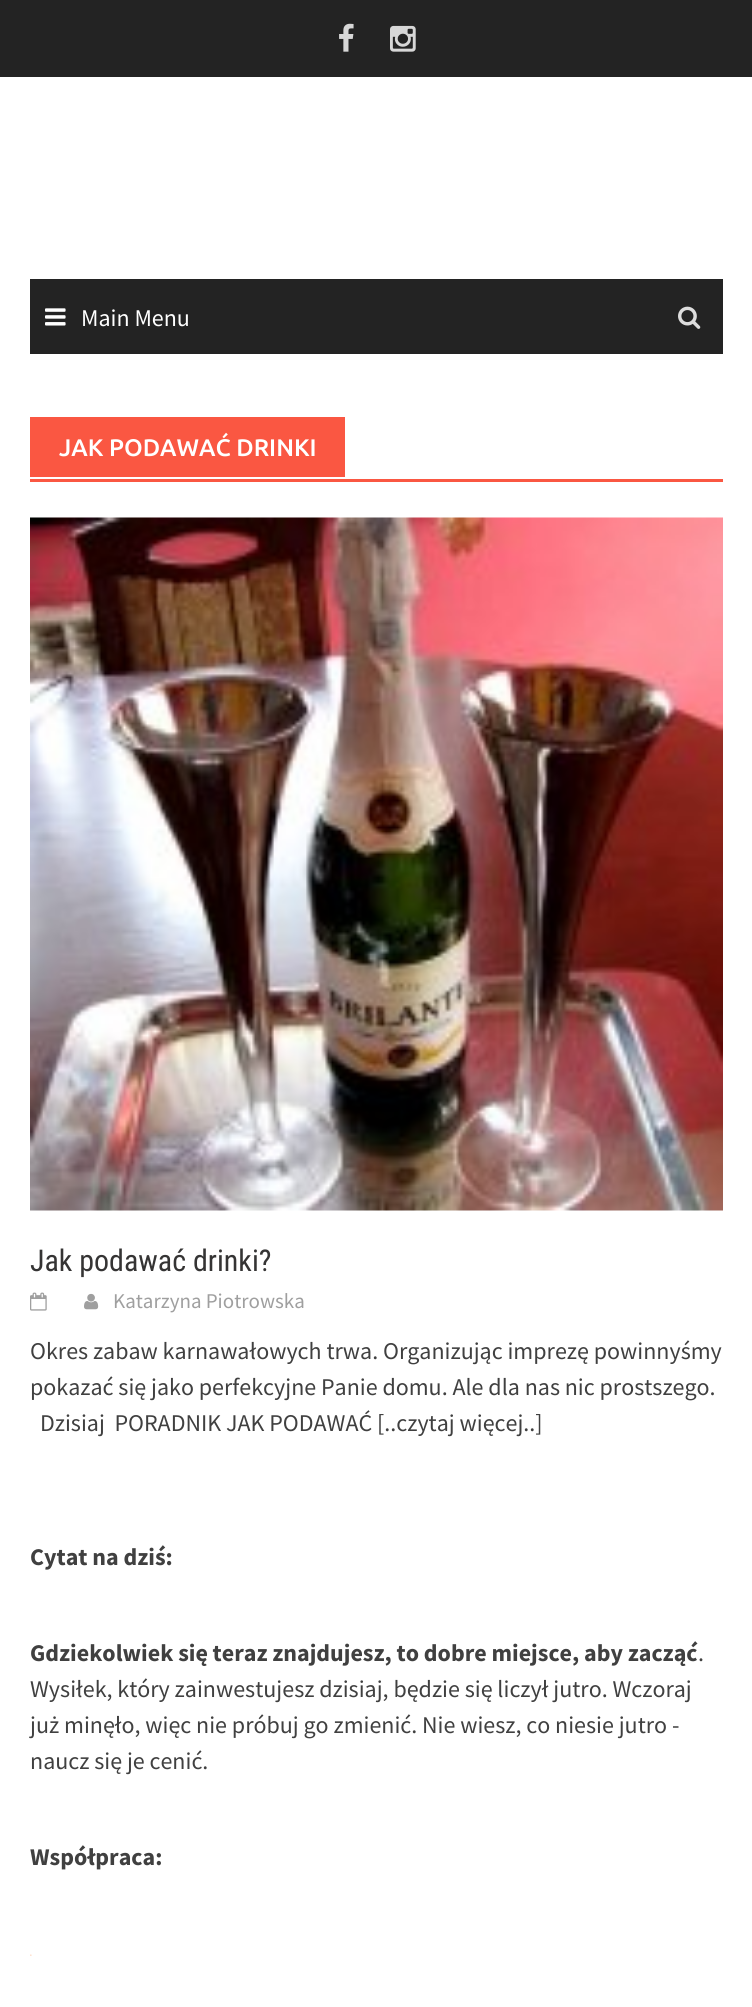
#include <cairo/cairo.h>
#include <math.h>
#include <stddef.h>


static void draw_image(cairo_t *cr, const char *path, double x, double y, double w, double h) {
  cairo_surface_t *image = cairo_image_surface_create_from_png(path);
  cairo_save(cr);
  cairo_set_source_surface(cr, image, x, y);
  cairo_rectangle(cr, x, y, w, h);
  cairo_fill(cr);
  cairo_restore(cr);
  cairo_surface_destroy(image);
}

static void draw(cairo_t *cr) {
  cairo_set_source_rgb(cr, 1, 1, 1);
  cairo_paint(cr);
  cairo_set_source_rgb(cr, 35 / 255.0, 35 / 255.0, 35 / 255.0);
  cairo_rectangle(cr, 0, 0, 752, 77);
  cairo_fill(cr);
  draw_image(cr, "images/1.png", 339, 23, 15, 29);
  draw_image(cr, "images/2.png", 390, 25, 26, 27);
  cairo_rectangle(cr, 30, 279, 693, 75);
  cairo_fill(cr);
  draw_image(cr, "images/3.png", 45, 308, 21, 18);
  draw_image(cr, "images/4.png", 678, 306, 23, 23);
  cairo_set_source_rgb(cr, 250 / 255.0, 87 / 255.0, 66 / 255.0);
  cairo_rectangle(cr, 30, 479, 693, 3);
  cairo_fill(cr);
  cairo_rectangle(cr, 30, 417, 315, 60);
  cairo_fill(cr);
  draw_image(cr, "images/5.png", 30, 517, 693, 694);
  draw_image(cr, "images/6.png", 30, 1292, 17, 19);
  draw_image(cr, "images/7.png", 84, 1293, 15, 17);
  draw_image(cr, "images/8.png", 30, 1954, 2, 2);
  cairo_select_font_face(cr, "Source Sans Pro", CAIRO_FONT_SLANT_NORMAL, CAIRO_FONT_WEIGHT_NORMAL);
  cairo_set_font_size(cr, 24);
  cairo_set_source_rgb(cr, 1, 1, 1);
  cairo_move_to(cr, 81, 326);
  cairo_show_text(cr, "Main Menu");
  cairo_select_font_face(cr, "Ubuntu Medium", CAIRO_FONT_SLANT_NORMAL, CAIRO_FONT_WEIGHT_NORMAL);
  cairo_move_to(cr, 59, 456);
  cairo_show_text(cr, "JAK PODAWAĆ DRINKI");
  cairo_select_font_face(cr, "Roboto Condensed", CAIRO_FONT_SLANT_NORMAL, CAIRO_FONT_WEIGHT_NORMAL);
  cairo_set_font_size(cr, 30);
  cairo_set_source_rgb(cr, 53 / 255.0, 52 / 255.0, 52 / 255.0);
  cairo_move_to(cr, 30, 1271);
  cairo_show_text(cr, "Jak podawać drinki?");
  cairo_select_font_face(cr, "Source Sans Pro", CAIRO_FONT_SLANT_NORMAL, CAIRO_FONT_WEIGHT_NORMAL);
  cairo_set_font_size(cr, 21);
  cairo_set_source_rgb(cr, 159 / 255.0, 159 / 255.0, 159 / 255.0);
  cairo_move_to(cr, 113, 1308);
  cairo_show_text(cr, "Katarzyna Piotrowska");
  cairo_set_font_size(cr, 24);
  cairo_set_source_rgb(cr, 64 / 255.0, 64 / 255.0, 64 / 255.0);
  cairo_move_to(cr, 30, 1359);
  cairo_show_text(cr, "Okres zabaw karnawałowych trwa. Organizując imprezę powinnyśmy");
  cairo_move_to(cr, 30, 1395);
  cairo_show_text(cr, "pokazać się jako perfekcyjne Panie domu. Ale dla nas nic prostszego.");
  cairo_move_to(cr, 40, 1431);
  cairo_show_text(cr, "Dzisiaj  PORADNIK JAK PODAWAĆ [..czytaj więcej..]");
  cairo_select_font_face(cr, "Source Sans Pro", CAIRO_FONT_SLANT_NORMAL, CAIRO_FONT_WEIGHT_BOLD);
  cairo_move_to(cr, 30, 1565);
  cairo_show_text(cr, "Cytat na dziś:");
  cairo_move_to(cr, 30, 1661);
  cairo_show_text(cr, "Gdziekolwiek się teraz znajdujesz, to dobre miejsce, aby zacząć");
  cairo_select_font_face(cr, "Source Sans Pro", CAIRO_FONT_SLANT_NORMAL, CAIRO_FONT_WEIGHT_NORMAL);
  cairo_move_to(cr, 698, 1661);
  cairo_show_text(cr, ".");
  cairo_move_to(cr, 30, 1697);
  cairo_show_text(cr, "Wysiłek, który zainwestujesz dzisiaj, będzie się liczył jutro. Wczoraj");
  cairo_move_to(cr, 30, 1733);
  cairo_show_text(cr, "już minęło, więc nie próbuj go zmienić. Nie wiesz, co niesie jutro -");
  cairo_move_to(cr, 30, 1769);
  cairo_show_text(cr, "naucz się je cenić.");
  cairo_select_font_face(cr, "Source Sans Pro", CAIRO_FONT_SLANT_NORMAL, CAIRO_FONT_WEIGHT_BOLD);
  cairo_move_to(cr, 30, 1865);
  cairo_show_text(cr, "Współpraca:");
}

int main(void) {
  cairo_surface_t *surface = cairo_image_surface_create(CAIRO_FORMAT_RGB24, 752, 2007);
  cairo_t *cr = cairo_create(surface);
  cairo_font_options_t *options = cairo_font_options_create();
  cairo_font_options_set_hint_metrics(options, CAIRO_HINT_METRICS_OFF);
  cairo_font_options_set_hint_style(options, CAIRO_HINT_STYLE_NONE);
  cairo_set_font_options(cr, options);
  cairo_set_miter_limit(cr, 4);
  draw(cr);
  cairo_surface_write_to_png(surface, "out.png");
  cairo_font_options_destroy(options);
  cairo_destroy(cr);
  cairo_surface_destroy(surface);
  return 0;
}
